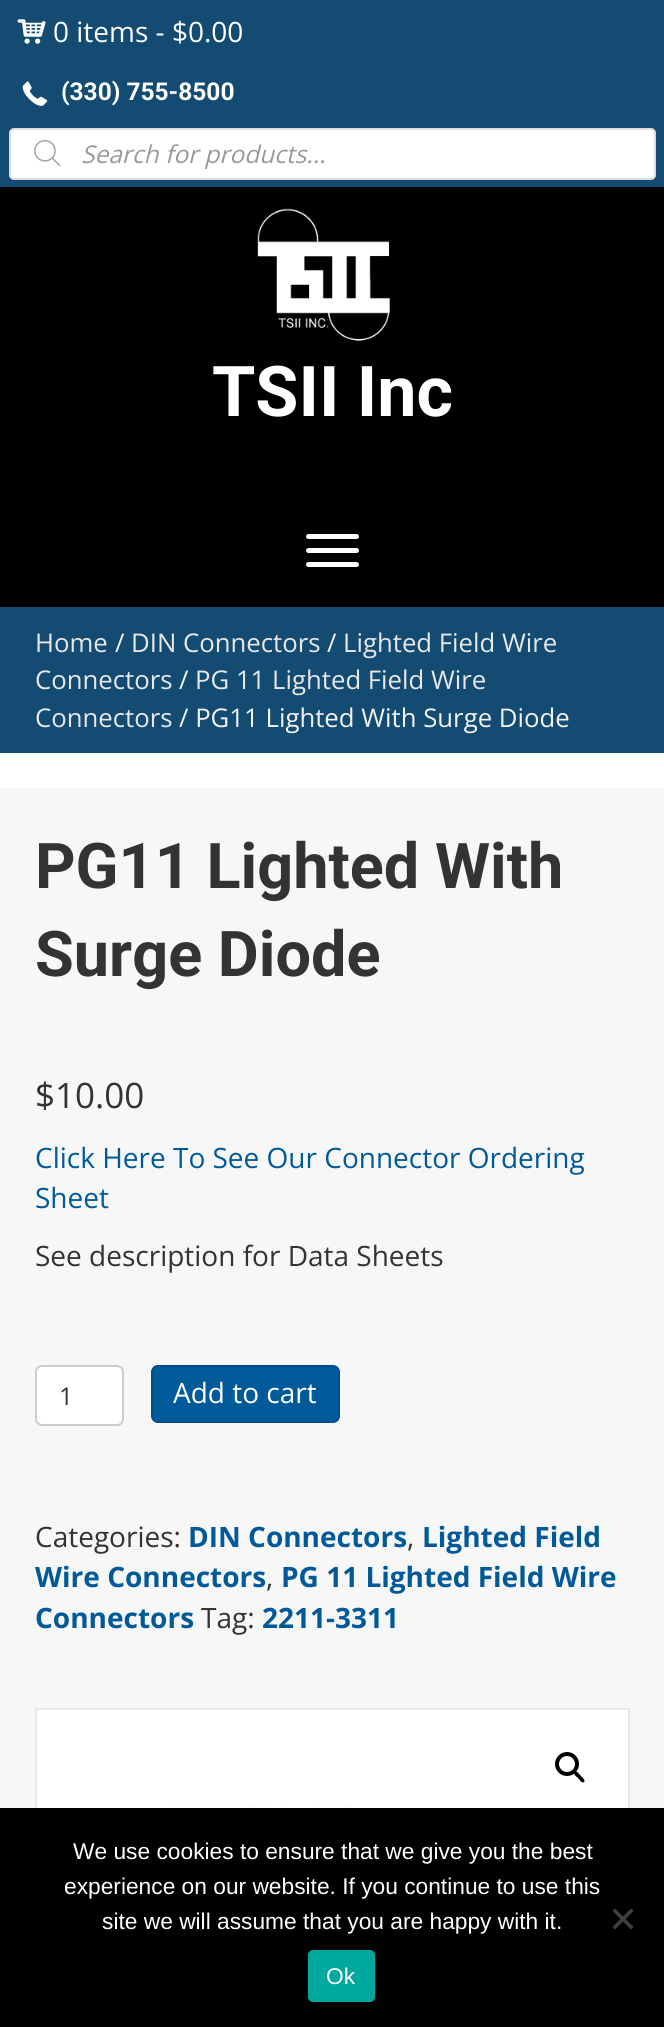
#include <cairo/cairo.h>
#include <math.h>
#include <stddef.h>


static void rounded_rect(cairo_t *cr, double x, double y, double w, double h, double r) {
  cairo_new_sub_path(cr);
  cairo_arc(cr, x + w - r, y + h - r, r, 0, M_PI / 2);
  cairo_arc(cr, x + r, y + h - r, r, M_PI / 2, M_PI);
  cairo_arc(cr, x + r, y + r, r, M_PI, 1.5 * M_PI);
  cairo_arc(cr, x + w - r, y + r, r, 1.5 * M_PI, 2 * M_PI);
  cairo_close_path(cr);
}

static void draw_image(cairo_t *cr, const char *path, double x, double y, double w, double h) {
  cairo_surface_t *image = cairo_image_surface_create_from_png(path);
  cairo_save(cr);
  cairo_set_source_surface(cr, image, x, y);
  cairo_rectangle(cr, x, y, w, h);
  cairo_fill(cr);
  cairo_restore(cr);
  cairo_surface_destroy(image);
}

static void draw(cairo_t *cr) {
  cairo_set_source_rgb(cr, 1, 1, 1);
  cairo_paint(cr);
  cairo_set_source_rgb(cr, 19 / 255.0, 75 / 255.0, 114 / 255.0);
  cairo_rectangle(cr, 0, 0, 664, 187);
  cairo_fill(cr);
  draw_image(cr, "images/1.png", 17, 19, 29, 25);
  draw_image(cr, "images/2.png", 22, 81, 26, 25);
  cairo_set_source_rgb(cr, 1, 1, 1);
  rounded_rect(cr, 10, 129, 645, 50, 4);
  cairo_fill_preserve(cr);
  cairo_set_source_rgb(cr, 221 / 255.0, 221 / 255.0, 221 / 255.0);
  cairo_stroke(cr);
  draw_image(cr, "images/3.png", 34, 140, 27, 26);
  cairo_set_source_rgb(cr, 0, 0, 0);
  cairo_rectangle(cr, 0, 187, 664, 420);
  cairo_fill(cr);
  draw_image(cr, "images/4.png", 257, 208, 133, 133);
  cairo_set_source_rgb(cr, 1, 1, 1);
  rounded_rect(cr, 306, 548, 53, 5, 2.5);
  cairo_fill(cr);
  rounded_rect(cr, 306, 534, 53, 5, 2.5);
  cairo_fill(cr);
  rounded_rect(cr, 306, 562, 53, 5, 2.5);
  cairo_fill(cr);
  cairo_set_source_rgb(cr, 19 / 255.0, 75 / 255.0, 114 / 255.0);
  cairo_rectangle(cr, 0, 607, 664, 146);
  cairo_fill(cr);
  cairo_set_source_rgb(cr, 247 / 255.0, 247 / 255.0, 247 / 255.0);
  cairo_rectangle(cr, 0, 788, 664, 1020);
  cairo_fill(cr);
  cairo_set_source_rgb(cr, 1, 1, 1);
  rounded_rect(cr, 36, 1366, 87, 59, 6);
  cairo_fill_preserve(cr);
  cairo_set_source_rgb(cr, 204 / 255.0, 204 / 255.0, 204 / 255.0);
  cairo_stroke(cr);
  cairo_set_source_rgb(cr, 0, 89 / 255.0, 153 / 255.0);
  rounded_rect(cr, 152, 1366, 187, 56, 6);
  cairo_fill_preserve(cr);
  cairo_set_source_rgb(cr, 0, 77 / 255.0, 141 / 255.0);
  cairo_stroke(cr);
  cairo_rectangle(cr, 36, 1709, 593, 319);
  cairo_set_source_rgb(cr, 230 / 255.0, 230 / 255.0, 230 / 255.0);
  cairo_stroke(cr);
  draw_image(cr, "images/5.png", 36, 1709, 593, 99);
  cairo_arc(cr, 567, 1764, 10, 0, 2 * M_PI);
  cairo_set_source_rgb(cr, 0, 0, 0);
  cairo_set_line_width(cr, 4);
  cairo_stroke(cr);
  cairo_new_path(cr);
  cairo_move_to(cr, 574.5, 1772);
  cairo_curve_to(cr, 576.5, 1770, 579.5, 1774.5, 580.5, 1775.5);
  cairo_curve_to(cr, 581.5, 1777, 586, 1780, 584, 1782);
  cairo_curve_to(cr, 582, 1784, 579, 1779, 578, 1778);
  cairo_curve_to(cr, 577, 1777, 572.5, 1774, 574.5, 1772);
  cairo_close_path(cr);
  cairo_fill(cr);
  cairo_rectangle(cr, 0, 1808, 664, 219);
  cairo_fill(cr);
  cairo_set_source_rgb(cr, 64 / 255.0, 64 / 255.0, 64 / 255.0);
  cairo_new_path(cr);
  cairo_move_to(cr, 631, 1908.5);
  cairo_line_to(cr, 633.5, 1911);
  cairo_line_to(cr, 615, 1929.5);
  cairo_line_to(cr, 612.5, 1927);
  cairo_close_path(cr);
  cairo_fill(cr);
  cairo_new_path(cr);
  cairo_move_to(cr, 612.5, 1911);
  cairo_line_to(cr, 615, 1908.5);
  cairo_line_to(cr, 633.5, 1927);
  cairo_line_to(cr, 631, 1929.5);
  cairo_close_path(cr);
  cairo_fill(cr);
  cairo_set_source_rgb(cr, 0, 169 / 255.0, 157 / 255.0);
  rounded_rect(cr, 308, 1950, 67, 52, 5);
  cairo_fill(cr);
  cairo_select_font_face(cr, "Open Sans", CAIRO_FONT_SLANT_NORMAL, CAIRO_FONT_WEIGHT_NORMAL);
  cairo_set_font_size(cr, 28);
  cairo_set_source_rgb(cr, 1, 1, 1);
  cairo_move_to(cr, 53, 42);
  cairo_show_text(cr, "0 items - $0.00");
  cairo_select_font_face(cr, "Roboto", CAIRO_FONT_SLANT_NORMAL, CAIRO_FONT_WEIGHT_BOLD);
  cairo_set_font_size(cr, 24.5);
  cairo_move_to(cr, 61, 100);
  cairo_show_text(cr, "(330) 755-8500");
  cairo_select_font_face(cr, "Open Sans", CAIRO_FONT_SLANT_ITALIC, CAIRO_FONT_WEIGHT_NORMAL);
  cairo_set_source_rgb(cr, 153 / 255.0, 153 / 255.0, 153 / 255.0);
  cairo_move_to(cr, 81, 163);
  cairo_show_text(cr, "Search for products...");
  cairo_select_font_face(cr, "Roboto", CAIRO_FONT_SLANT_NORMAL, CAIRO_FONT_WEIGHT_BOLD);
  cairo_set_font_size(cr, 70);
  cairo_set_source_rgb(cr, 1, 1, 1);
  cairo_move_to(cr, 212, 416);
  cairo_show_text(cr, "TSII Inc");
  cairo_select_font_face(cr, "Open Sans", CAIRO_FONT_SLANT_NORMAL, CAIRO_FONT_WEIGHT_NORMAL);
  cairo_set_font_size(cr, 25.75);
  cairo_set_source_rgb(cr, 232 / 255.0, 232 / 255.0, 232 / 255.0);
  cairo_move_to(cr, 35, 652);
  cairo_show_text(cr, "Home");
  cairo_set_source_rgb(cr, 243 / 255.0, 243 / 255.0, 243 / 255.0);
  cairo_move_to(cr, 115, 652);
  cairo_show_text(cr, "/");
  cairo_set_source_rgb(cr, 232 / 255.0, 232 / 255.0, 232 / 255.0);
  cairo_move_to(cr, 131, 652);
  cairo_show_text(cr, "DIN Connectors");
  cairo_set_source_rgb(cr, 243 / 255.0, 243 / 255.0, 243 / 255.0);
  cairo_move_to(cr, 327, 652);
  cairo_show_text(cr, "/");
  cairo_set_source_rgb(cr, 232 / 255.0, 232 / 255.0, 232 / 255.0);
  cairo_move_to(cr, 343, 652);
  cairo_show_text(cr, "Lighted Field Wire");
  cairo_move_to(cr, 35, 689);
  cairo_show_text(cr, "Connectors");
  cairo_set_source_rgb(cr, 243 / 255.0, 243 / 255.0, 243 / 255.0);
  cairo_move_to(cr, 179, 689);
  cairo_show_text(cr, "/");
  cairo_set_source_rgb(cr, 232 / 255.0, 232 / 255.0, 232 / 255.0);
  cairo_move_to(cr, 195, 689);
  cairo_show_text(cr, "PG 11 Lighted Field Wire");
  cairo_move_to(cr, 35, 727);
  cairo_show_text(cr, "Connectors");
  cairo_set_source_rgb(cr, 243 / 255.0, 243 / 255.0, 243 / 255.0);
  cairo_move_to(cr, 179, 727);
  cairo_show_text(cr, "/ PG11 Lighted With Surge Diode");
  cairo_select_font_face(cr, "Roboto", CAIRO_FONT_SLANT_NORMAL, CAIRO_FONT_WEIGHT_BOLD);
  cairo_set_font_size(cr, 63);
  cairo_set_source_rgb(cr, 51 / 255.0, 51 / 255.0, 51 / 255.0);
  cairo_move_to(cr, 35, 888);
  cairo_show_text(cr, "PG11 Lighted With");
  cairo_move_to(cr, 35, 976);
  cairo_show_text(cr, "Surge Diode");
  cairo_select_font_face(cr, "Open Sans", CAIRO_FONT_SLANT_NORMAL, CAIRO_FONT_WEIGHT_NORMAL);
  cairo_set_font_size(cr, 35);
  cairo_move_to(cr, 35, 1108);
  cairo_show_text(cr, "$10.00");
  cairo_set_font_size(cr, 28);
  cairo_set_source_rgb(cr, 0, 89 / 255.0, 153 / 255.0);
  cairo_move_to(cr, 35, 1168);
  cairo_show_text(cr, "Click Here To See Our Connector Ordering");
  cairo_move_to(cr, 35, 1208);
  cairo_show_text(cr, "Sheet");
  cairo_set_source_rgb(cr, 51 / 255.0, 51 / 255.0, 51 / 255.0);
  cairo_move_to(cr, 35, 1266);
  cairo_show_text(cr, "See description for Data Sheets");
  cairo_set_font_size(cr, 24.5);
  cairo_move_to(cr, 59, 1405);
  cairo_show_text(cr, "1");
  cairo_set_font_size(cr, 28);
  cairo_set_source_rgb(cr, 1, 1, 1);
  cairo_move_to(cr, 173, 1403);
  cairo_show_text(cr, "Add to cart");
  cairo_set_source_rgb(cr, 51 / 255.0, 51 / 255.0, 51 / 255.0);
  cairo_move_to(cr, 35, 1547);
  cairo_show_text(cr, "Categories:");
  cairo_select_font_face(cr, "Open Sans", CAIRO_FONT_SLANT_NORMAL, CAIRO_FONT_WEIGHT_BOLD);
  cairo_set_source_rgb(cr, 0, 89 / 255.0, 153 / 255.0);
  cairo_move_to(cr, 188, 1547);
  cairo_show_text(cr, "DIN Connectors");
  cairo_select_font_face(cr, "Open Sans", CAIRO_FONT_SLANT_NORMAL, CAIRO_FONT_WEIGHT_NORMAL);
  cairo_set_source_rgb(cr, 51 / 255.0, 51 / 255.0, 51 / 255.0);
  cairo_move_to(cr, 407, 1547);
  cairo_show_text(cr, ",");
  cairo_select_font_face(cr, "Open Sans", CAIRO_FONT_SLANT_NORMAL, CAIRO_FONT_WEIGHT_BOLD);
  cairo_set_source_rgb(cr, 0, 89 / 255.0, 153 / 255.0);
  cairo_move_to(cr, 422, 1547);
  cairo_show_text(cr, "Lighted Field");
  cairo_move_to(cr, 35, 1587);
  cairo_show_text(cr, "Wire Connectors");
  cairo_select_font_face(cr, "Open Sans", CAIRO_FONT_SLANT_NORMAL, CAIRO_FONT_WEIGHT_NORMAL);
  cairo_set_source_rgb(cr, 51 / 255.0, 51 / 255.0, 51 / 255.0);
  cairo_move_to(cr, 266, 1587);
  cairo_show_text(cr, ",");
  cairo_select_font_face(cr, "Open Sans", CAIRO_FONT_SLANT_NORMAL, CAIRO_FONT_WEIGHT_BOLD);
  cairo_set_source_rgb(cr, 0, 89 / 255.0, 153 / 255.0);
  cairo_move_to(cr, 281, 1587);
  cairo_show_text(cr, "PG 11 Lighted Field Wire");
  cairo_move_to(cr, 35, 1628);
  cairo_show_text(cr, "Connectors");
  cairo_select_font_face(cr, "Open Sans", CAIRO_FONT_SLANT_NORMAL, CAIRO_FONT_WEIGHT_NORMAL);
  cairo_set_source_rgb(cr, 51 / 255.0, 51 / 255.0, 51 / 255.0);
  cairo_move_to(cr, 201, 1628);
  cairo_show_text(cr, "Tag:");
  cairo_select_font_face(cr, "Open Sans", CAIRO_FONT_SLANT_NORMAL, CAIRO_FONT_WEIGHT_BOLD);
  cairo_set_source_rgb(cr, 0, 89 / 255.0, 153 / 255.0);
  cairo_move_to(cr, 262, 1628);
  cairo_show_text(cr, "2211-3311");
  cairo_select_font_face(cr, "Liberation Sans", CAIRO_FONT_SLANT_NORMAL, CAIRO_FONT_WEIGHT_NORMAL);
  cairo_set_font_size(cr, 22.75);
  cairo_set_source_rgb(cr, 1, 1, 1);
  cairo_move_to(cr, 73, 1859);
  cairo_show_text(cr, "We use cookies to ensure that we give you the best");
  cairo_move_to(cr, 64, 1894);
  cairo_show_text(cr, "experience on our website. If you continue to use this");
  cairo_move_to(cr, 102, 1929);
  cairo_show_text(cr, "site we will assume that you are happy with it.");
  cairo_move_to(cr, 326, 1984);
  cairo_show_text(cr, "Ok");
}

int main(void) {
  cairo_surface_t *surface = cairo_image_surface_create(CAIRO_FORMAT_RGB24, 664, 2027);
  cairo_t *cr = cairo_create(surface);
  cairo_font_options_t *options = cairo_font_options_create();
  cairo_font_options_set_hint_metrics(options, CAIRO_HINT_METRICS_OFF);
  cairo_font_options_set_hint_style(options, CAIRO_HINT_STYLE_NONE);
  cairo_set_font_options(cr, options);
  cairo_set_miter_limit(cr, 4);
  draw(cr);
  cairo_surface_write_to_png(surface, "out.png");
  cairo_font_options_destroy(options);
  cairo_destroy(cr);
  cairo_surface_destroy(surface);
  return 0;
}
